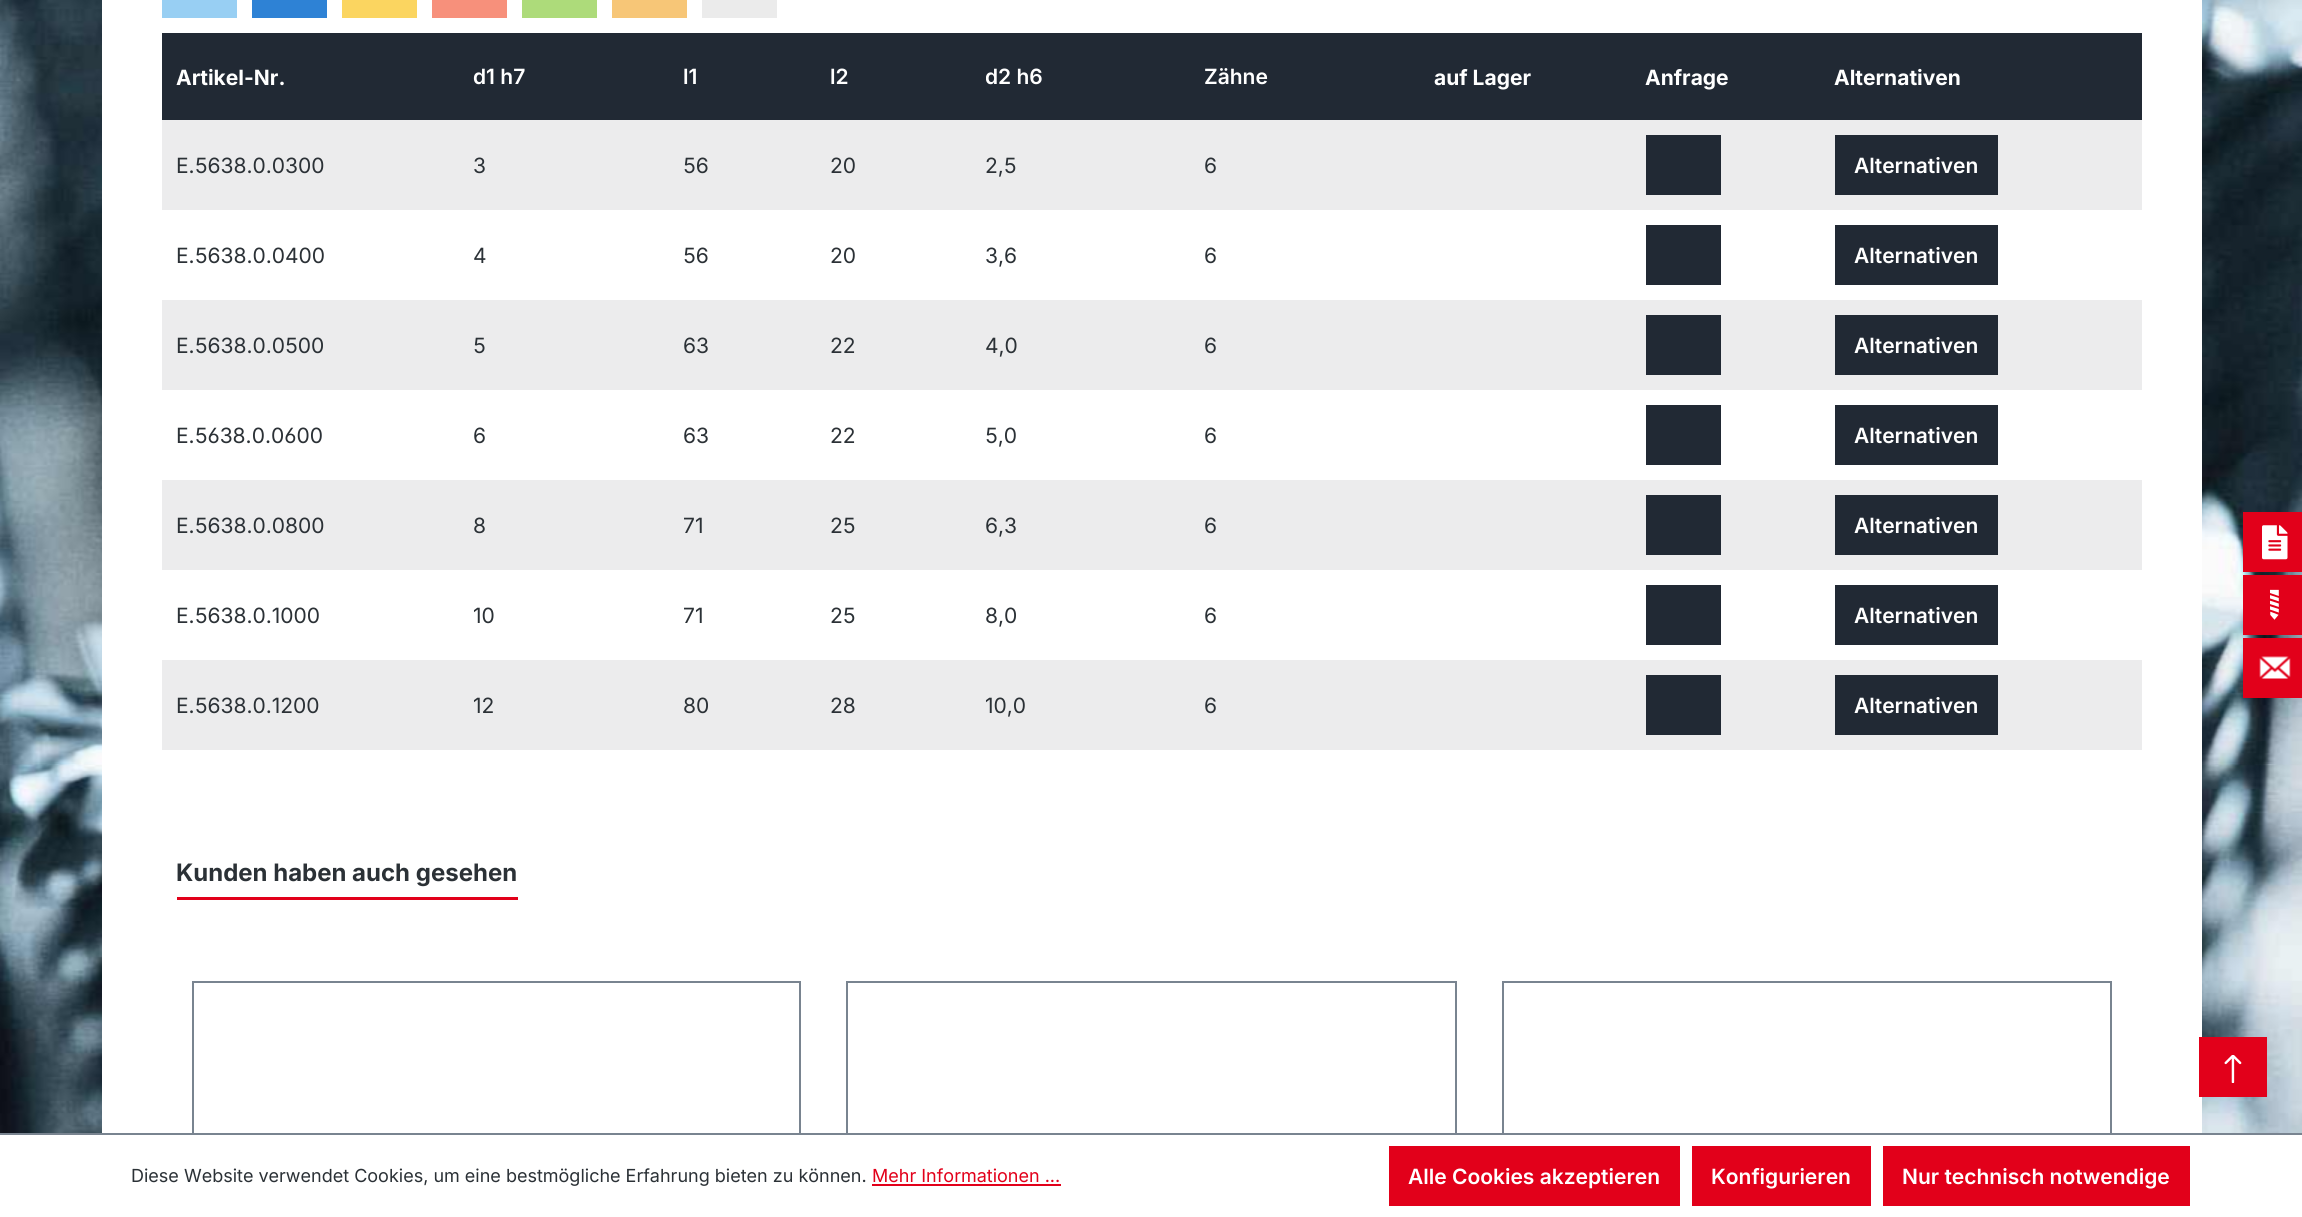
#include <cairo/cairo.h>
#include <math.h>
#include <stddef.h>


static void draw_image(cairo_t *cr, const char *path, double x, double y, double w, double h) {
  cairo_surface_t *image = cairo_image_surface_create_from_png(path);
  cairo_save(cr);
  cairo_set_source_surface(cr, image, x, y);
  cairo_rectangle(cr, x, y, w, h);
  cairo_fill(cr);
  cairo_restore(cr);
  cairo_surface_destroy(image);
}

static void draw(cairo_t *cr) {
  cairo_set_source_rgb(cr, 1, 1, 1);
  cairo_paint(cr);
  draw_image(cr, "images/1.png", 0, 0, 2302, 1133);
  cairo_set_source_rgb(cr, 1, 1, 1);
  cairo_rectangle(cr, 102, 0, 2100, 1133);
  cairo_fill(cr);
  cairo_set_source_rgb(cr, 152 / 255.0, 207 / 255.0, 243 / 255.0);
  cairo_rectangle(cr, 162, 0, 75, 18);
  cairo_fill(cr);
  cairo_set_source_rgb(cr, 46 / 255.0, 130 / 255.0, 213 / 255.0);
  cairo_rectangle(cr, 252, 0, 75, 18);
  cairo_fill(cr);
  cairo_set_source_rgb(cr, 251 / 255.0, 213 / 255.0, 96 / 255.0);
  cairo_rectangle(cr, 342, 0, 75, 18);
  cairo_fill(cr);
  cairo_set_source_rgb(cr, 247 / 255.0, 144 / 255.0, 123 / 255.0);
  cairo_rectangle(cr, 432, 0, 75, 18);
  cairo_fill(cr);
  cairo_set_source_rgb(cr, 173 / 255.0, 219 / 255.0, 122 / 255.0);
  cairo_rectangle(cr, 522, 0, 75, 18);
  cairo_fill(cr);
  cairo_set_source_rgb(cr, 247 / 255.0, 198 / 255.0, 119 / 255.0);
  cairo_rectangle(cr, 612, 0, 75, 18);
  cairo_fill(cr);
  cairo_set_source_rgb(cr, 235 / 255.0, 235 / 255.0, 235 / 255.0);
  cairo_rectangle(cr, 702, 0, 75, 18);
  cairo_fill(cr);
  cairo_set_source_rgb(cr, 33 / 255.0, 41 / 255.0, 52 / 255.0);
  cairo_rectangle(cr, 162, 33, 1980, 87);
  cairo_fill(cr);
  cairo_set_source_rgb(cr, 236 / 255.0, 236 / 255.0, 237 / 255.0);
  cairo_rectangle(cr, 162, 120, 1980, 90);
  cairo_fill(cr);
  cairo_set_source_rgb(cr, 33 / 255.0, 41 / 255.0, 52 / 255.0);
  cairo_rectangle(cr, 1646, 135, 75, 60);
  cairo_fill(cr);
  cairo_rectangle(cr, 1835, 135, 163, 60);
  cairo_fill(cr);
  cairo_rectangle(cr, 1646, 225, 75, 60);
  cairo_fill(cr);
  cairo_rectangle(cr, 1835, 225, 163, 60);
  cairo_fill(cr);
  cairo_set_source_rgb(cr, 236 / 255.0, 236 / 255.0, 237 / 255.0);
  cairo_rectangle(cr, 162, 300, 1980, 90);
  cairo_fill(cr);
  cairo_set_source_rgb(cr, 33 / 255.0, 41 / 255.0, 52 / 255.0);
  cairo_rectangle(cr, 1646, 315, 75, 60);
  cairo_fill(cr);
  cairo_rectangle(cr, 1835, 315, 163, 60);
  cairo_fill(cr);
  cairo_rectangle(cr, 1646, 405, 75, 60);
  cairo_fill(cr);
  cairo_rectangle(cr, 1835, 405, 163, 60);
  cairo_fill(cr);
  cairo_set_source_rgb(cr, 236 / 255.0, 236 / 255.0, 237 / 255.0);
  cairo_rectangle(cr, 162, 480, 1980, 90);
  cairo_fill(cr);
  cairo_set_source_rgb(cr, 33 / 255.0, 41 / 255.0, 52 / 255.0);
  cairo_rectangle(cr, 1646, 495, 75, 60);
  cairo_fill(cr);
  cairo_rectangle(cr, 1835, 495, 163, 60);
  cairo_fill(cr);
  cairo_rectangle(cr, 1646, 585, 75, 60);
  cairo_fill(cr);
  cairo_rectangle(cr, 1835, 585, 163, 60);
  cairo_fill(cr);
  cairo_set_source_rgb(cr, 236 / 255.0, 236 / 255.0, 237 / 255.0);
  cairo_rectangle(cr, 162, 660, 1980, 90);
  cairo_fill(cr);
  cairo_set_source_rgb(cr, 33 / 255.0, 41 / 255.0, 52 / 255.0);
  cairo_rectangle(cr, 1646, 675, 75, 60);
  cairo_fill(cr);
  cairo_rectangle(cr, 1835, 675, 163, 60);
  cairo_fill(cr);
  cairo_set_source_rgb(cr, 226 / 255.0, 0, 26 / 255.0);
  cairo_rectangle(cr, 177, 897, 341, 3);
  cairo_fill(cr);
  cairo_rectangle(cr, 193, 982, 607, 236);
  cairo_set_source_rgb(cr, 121 / 255.0, 132 / 255.0, 144 / 255.0);
  cairo_stroke(cr);
  cairo_rectangle(cr, 847, 982, 609, 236);
  cairo_stroke(cr);
  cairo_rectangle(cr, 1503, 982, 608, 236);
  cairo_stroke(cr);
  cairo_set_source_rgb(cr, 226 / 255.0, 0, 26 / 255.0);
  cairo_rectangle(cr, 2243, 512, 59, 60);
  cairo_fill(cr);
  draw_image(cr, "images/2.png", 2262, 525, 26, 35);
  cairo_rectangle(cr, 2243, 575, 59, 60);
  cairo_fill(cr);
  draw_image(cr, "images/3.png", 2270, 589, 9, 31);
  cairo_rectangle(cr, 2243, 638, 59, 60);
  cairo_fill(cr);
  draw_image(cr, "images/4.png", 2259, 656, 32, 23);
  cairo_rectangle(cr, 2199, 1037, 68, 60);
  cairo_fill(cr);
  draw_image(cr, "images/5.png", 2224, 1055, 18, 28);
  cairo_set_source_rgb(cr, 1, 1, 1);
  cairo_rectangle(cr, 192, 1135, 1920, 82);
  cairo_fill(cr);
  cairo_set_source_rgb(cr, 121 / 255.0, 132 / 255.0, 144 / 255.0);
  cairo_rectangle(cr, 0, 1133, 2302, 2);
  cairo_fill(cr);
  cairo_set_source_rgb(cr, 226 / 255.0, 0, 26 / 255.0);
  cairo_rectangle(cr, 872, 1184, 189, 2);
  cairo_fill(cr);
  cairo_rectangle(cr, 1389, 1146, 291, 60);
  cairo_fill(cr);
  cairo_rectangle(cr, 1692, 1146, 179, 60);
  cairo_fill(cr);
  cairo_rectangle(cr, 1883, 1146, 307, 60);
  cairo_fill(cr);
  cairo_select_font_face(cr, "Inter", CAIRO_FONT_SLANT_NORMAL, CAIRO_FONT_WEIGHT_BOLD);
  cairo_set_font_size(cr, 21);
  cairo_set_source_rgb(cr, 1, 1, 1);
  cairo_move_to(cr, 176, 85);
  cairo_show_text(cr, "Artikel-Nr.");
  cairo_select_font_face(cr, "Inter SemiBold", CAIRO_FONT_SLANT_NORMAL, CAIRO_FONT_WEIGHT_NORMAL);
  cairo_move_to(cr, 473, 84);
  cairo_show_text(cr, "d1 h7");
  cairo_move_to(cr, 683, 84);
  cairo_show_text(cr, "l1");
  cairo_move_to(cr, 830, 84);
  cairo_show_text(cr, "l2");
  cairo_save(cr);
  cairo_rectangle(cr, 986, 48, 100, 57);
  cairo_clip(cr);
  cairo_move_to(cr, 985, 84);
  cairo_show_text(cr, "d2 h6");
  cairo_restore(cr);
  cairo_move_to(cr, 1204, 84);
  cairo_show_text(cr, "Zähne");
  cairo_select_font_face(cr, "Inter", CAIRO_FONT_SLANT_NORMAL, CAIRO_FONT_WEIGHT_BOLD);
  cairo_move_to(cr, 1434, 85);
  cairo_show_text(cr, "auf Lager");
  cairo_move_to(cr, 1645, 85);
  cairo_show_text(cr, "Anfrage");
  cairo_move_to(cr, 1834, 85);
  cairo_show_text(cr, "Alternativen");
  cairo_select_font_face(cr, "Inter", CAIRO_FONT_SLANT_NORMAL, CAIRO_FONT_WEIGHT_NORMAL);
  cairo_set_source_rgb(cr, 43 / 255.0, 49 / 255.0, 54 / 255.0);
  cairo_move_to(cr, 176, 173);
  cairo_show_text(cr, "E.5638.0.0300");
  cairo_move_to(cr, 473, 173);
  cairo_show_text(cr, "3");
  cairo_move_to(cr, 683, 173);
  cairo_show_text(cr, "56");
  cairo_move_to(cr, 830, 173);
  cairo_show_text(cr, "20");
  cairo_move_to(cr, 985, 173);
  cairo_show_text(cr, "2,5");
  cairo_move_to(cr, 1204, 173);
  cairo_show_text(cr, "6");
  cairo_select_font_face(cr, "Inter SemiBold", CAIRO_FONT_SLANT_NORMAL, CAIRO_FONT_WEIGHT_NORMAL);
  cairo_set_source_rgb(cr, 1, 1, 1);
  cairo_move_to(cr, 1854, 173);
  cairo_show_text(cr, "Alternativen");
  cairo_select_font_face(cr, "Inter", CAIRO_FONT_SLANT_NORMAL, CAIRO_FONT_WEIGHT_NORMAL);
  cairo_set_source_rgb(cr, 43 / 255.0, 49 / 255.0, 54 / 255.0);
  cairo_move_to(cr, 176, 263);
  cairo_show_text(cr, "E.5638.0.0400");
  cairo_move_to(cr, 473, 263);
  cairo_show_text(cr, "4");
  cairo_move_to(cr, 683, 263);
  cairo_show_text(cr, "56");
  cairo_move_to(cr, 830, 263);
  cairo_show_text(cr, "20");
  cairo_move_to(cr, 985, 263);
  cairo_show_text(cr, "3,6");
  cairo_move_to(cr, 1204, 263);
  cairo_show_text(cr, "6");
  cairo_select_font_face(cr, "Inter SemiBold", CAIRO_FONT_SLANT_NORMAL, CAIRO_FONT_WEIGHT_NORMAL);
  cairo_set_source_rgb(cr, 1, 1, 1);
  cairo_move_to(cr, 1854, 263);
  cairo_show_text(cr, "Alternativen");
  cairo_select_font_face(cr, "Inter", CAIRO_FONT_SLANT_NORMAL, CAIRO_FONT_WEIGHT_NORMAL);
  cairo_set_source_rgb(cr, 43 / 255.0, 49 / 255.0, 54 / 255.0);
  cairo_move_to(cr, 176, 353);
  cairo_show_text(cr, "E.5638.0.0500");
  cairo_move_to(cr, 473, 353);
  cairo_show_text(cr, "5");
  cairo_move_to(cr, 683, 353);
  cairo_show_text(cr, "63");
  cairo_move_to(cr, 830, 353);
  cairo_show_text(cr, "22");
  cairo_move_to(cr, 985, 353);
  cairo_show_text(cr, "4,0");
  cairo_move_to(cr, 1204, 353);
  cairo_show_text(cr, "6");
  cairo_select_font_face(cr, "Inter SemiBold", CAIRO_FONT_SLANT_NORMAL, CAIRO_FONT_WEIGHT_NORMAL);
  cairo_set_source_rgb(cr, 1, 1, 1);
  cairo_move_to(cr, 1854, 353);
  cairo_show_text(cr, "Alternativen");
  cairo_select_font_face(cr, "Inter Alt", CAIRO_FONT_SLANT_NORMAL, CAIRO_FONT_WEIGHT_NORMAL);
  cairo_set_source_rgb(cr, 43 / 255.0, 49 / 255.0, 54 / 255.0);
  cairo_move_to(cr, 176, 443);
  cairo_show_text(cr, "E.5638.0.0600");
  cairo_select_font_face(cr, "Inter", CAIRO_FONT_SLANT_NORMAL, CAIRO_FONT_WEIGHT_NORMAL);
  cairo_move_to(cr, 473, 443);
  cairo_show_text(cr, "6");
  cairo_move_to(cr, 683, 443);
  cairo_show_text(cr, "63");
  cairo_move_to(cr, 830, 443);
  cairo_show_text(cr, "22");
  cairo_move_to(cr, 985, 443);
  cairo_show_text(cr, "5,0");
  cairo_move_to(cr, 1204, 443);
  cairo_show_text(cr, "6");
  cairo_select_font_face(cr, "Inter SemiBold", CAIRO_FONT_SLANT_NORMAL, CAIRO_FONT_WEIGHT_NORMAL);
  cairo_set_source_rgb(cr, 1, 1, 1);
  cairo_move_to(cr, 1854, 443);
  cairo_show_text(cr, "Alternativen");
  cairo_select_font_face(cr, "Inter", CAIRO_FONT_SLANT_NORMAL, CAIRO_FONT_WEIGHT_NORMAL);
  cairo_set_source_rgb(cr, 43 / 255.0, 49 / 255.0, 54 / 255.0);
  cairo_move_to(cr, 176, 533);
  cairo_show_text(cr, "E.5638.0.0800");
  cairo_move_to(cr, 473, 533);
  cairo_show_text(cr, "8");
  cairo_move_to(cr, 683, 533);
  cairo_show_text(cr, "71");
  cairo_move_to(cr, 830, 533);
  cairo_show_text(cr, "25");
  cairo_move_to(cr, 985, 533);
  cairo_show_text(cr, "6,3");
  cairo_move_to(cr, 1204, 533);
  cairo_show_text(cr, "6");
  cairo_select_font_face(cr, "Inter SemiBold", CAIRO_FONT_SLANT_NORMAL, CAIRO_FONT_WEIGHT_NORMAL);
  cairo_set_source_rgb(cr, 1, 1, 1);
  cairo_move_to(cr, 1854, 533);
  cairo_show_text(cr, "Alternativen");
  cairo_select_font_face(cr, "Inter", CAIRO_FONT_SLANT_NORMAL, CAIRO_FONT_WEIGHT_NORMAL);
  cairo_set_source_rgb(cr, 43 / 255.0, 49 / 255.0, 54 / 255.0);
  cairo_move_to(cr, 176, 623);
  cairo_show_text(cr, "E.5638.0.1000");
  cairo_move_to(cr, 473, 623);
  cairo_show_text(cr, "10");
  cairo_move_to(cr, 683, 623);
  cairo_show_text(cr, "71");
  cairo_move_to(cr, 830, 623);
  cairo_show_text(cr, "25");
  cairo_move_to(cr, 985, 623);
  cairo_show_text(cr, "8,0");
  cairo_move_to(cr, 1204, 623);
  cairo_show_text(cr, "6");
  cairo_select_font_face(cr, "Inter SemiBold", CAIRO_FONT_SLANT_NORMAL, CAIRO_FONT_WEIGHT_NORMAL);
  cairo_set_source_rgb(cr, 1, 1, 1);
  cairo_move_to(cr, 1854, 623);
  cairo_show_text(cr, "Alternativen");
  cairo_select_font_face(cr, "Inter", CAIRO_FONT_SLANT_NORMAL, CAIRO_FONT_WEIGHT_NORMAL);
  cairo_set_source_rgb(cr, 43 / 255.0, 49 / 255.0, 54 / 255.0);
  cairo_move_to(cr, 176, 713);
  cairo_show_text(cr, "E.5638.0.1200");
  cairo_move_to(cr, 473, 713);
  cairo_show_text(cr, "12");
  cairo_move_to(cr, 683, 713);
  cairo_show_text(cr, "80");
  cairo_move_to(cr, 830, 713);
  cairo_show_text(cr, "28");
  cairo_move_to(cr, 985, 713);
  cairo_show_text(cr, "10,0");
  cairo_move_to(cr, 1204, 713);
  cairo_show_text(cr, "6");
  cairo_select_font_face(cr, "Inter SemiBold", CAIRO_FONT_SLANT_NORMAL, CAIRO_FONT_WEIGHT_NORMAL);
  cairo_set_source_rgb(cr, 1, 1, 1);
  cairo_move_to(cr, 1854, 713);
  cairo_show_text(cr, "Alternativen");
  cairo_select_font_face(cr, "Inter", CAIRO_FONT_SLANT_NORMAL, CAIRO_FONT_WEIGHT_BOLD);
  cairo_set_font_size(cr, 24);
  cairo_set_source_rgb(cr, 43 / 255.0, 49 / 255.0, 54 / 255.0);
  cairo_move_to(cr, 176, 881);
  cairo_show_text(cr, "Kunden haben auch gesehen");
  cairo_select_font_face(cr, "Inter", CAIRO_FONT_SLANT_NORMAL, CAIRO_FONT_WEIGHT_NORMAL);
  cairo_set_font_size(cr, 18);
  cairo_move_to(cr, 131, 1182);
  cairo_show_text(cr, "Diese Website verwendet Cookies, um eine bestmögliche Erfahrung bieten zu können.");
  cairo_set_source_rgb(cr, 226 / 255.0, 0, 26 / 255.0);
  cairo_move_to(cr, 872, 1182);
  cairo_show_text(cr, "Mehr Informationen ...");
  cairo_select_font_face(cr, "Inter SemiBold", CAIRO_FONT_SLANT_NORMAL, CAIRO_FONT_WEIGHT_NORMAL);
  cairo_set_font_size(cr, 21);
  cairo_set_source_rgb(cr, 1, 1, 1);
  cairo_move_to(cr, 1408, 1184);
  cairo_show_text(cr, "Alle Cookies akzeptieren");
  cairo_move_to(cr, 1711, 1184);
  cairo_show_text(cr, "Konfigurieren");
  cairo_move_to(cr, 1902, 1184);
  cairo_show_text(cr, "Nur technisch notwendige");
}

int main(void) {
  cairo_surface_t *surface = cairo_image_surface_create(CAIRO_FORMAT_RGB24, 2302, 1217);
  cairo_t *cr = cairo_create(surface);
  cairo_font_options_t *options = cairo_font_options_create();
  cairo_font_options_set_hint_metrics(options, CAIRO_HINT_METRICS_OFF);
  cairo_font_options_set_hint_style(options, CAIRO_HINT_STYLE_NONE);
  cairo_set_font_options(cr, options);
  cairo_set_miter_limit(cr, 4);
  draw(cr);
  cairo_surface_write_to_png(surface, "out.png");
  cairo_font_options_destroy(options);
  cairo_destroy(cr);
  cairo_surface_destroy(surface);
  return 0;
}
